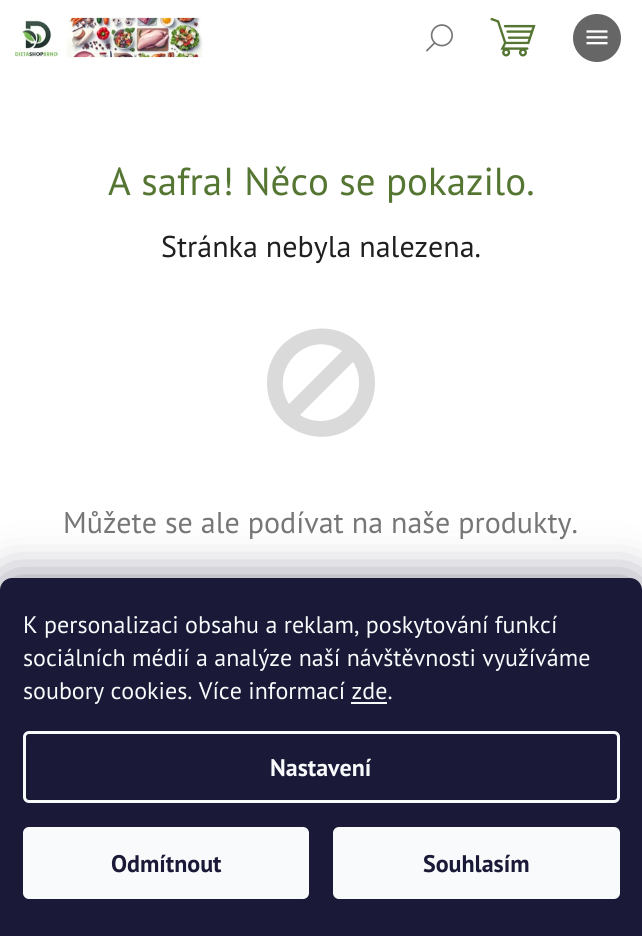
#include <cairo/cairo.h>
#include <math.h>
#include <stddef.h>


static void rounded_rect(cairo_t *cr, double x, double y, double w, double h, double r) {
  cairo_new_sub_path(cr);
  cairo_arc(cr, x + w - r, y + h - r, r, 0, M_PI / 2);
  cairo_arc(cr, x + r, y + h - r, r, M_PI / 2, M_PI);
  cairo_arc(cr, x + r, y + r, r, M_PI, 1.5 * M_PI);
  cairo_arc(cr, x + w - r, y + r, r, 1.5 * M_PI, 2 * M_PI);
  cairo_close_path(cr);
}

static void draw_shadow(cairo_t *cr, double x, double y, double w, double h, double r, double blur, double alpha) {
  cairo_push_group_with_content(cr, CAIRO_CONTENT_ALPHA);
  cairo_set_operator(cr, CAIRO_OPERATOR_SOURCE);
  for (int i = 15; i >= -15 && fmin(w, h) + blur * i / 3 > 0; i -= 2) {
    double e = blur * i / 6;
    cairo_set_source_rgba(cr, 0, 0, 0, alpha * erfc((i - 1) / 8.5) / 2);
    rounded_rect(cr, x - e, y - e, w + 2 * e, h + 2 * e, fmax(0, fmin(r + e + blur * .6, fmin(w, h) / 2 + e)));
    cairo_fill(cr);
  }
  cairo_pattern_t *soft = cairo_pop_group(cr);
  cairo_mask(cr, soft);
  cairo_pattern_destroy(soft);
}

static void draw_image(cairo_t *cr, const char *path, double x, double y, double w, double h) {
  cairo_surface_t *image = cairo_image_surface_create_from_png(path);
  cairo_save(cr);
  cairo_set_source_surface(cr, image, x, y);
  cairo_rectangle(cr, x, y, w, h);
  cairo_fill(cr);
  cairo_restore(cr);
  cairo_surface_destroy(image);
}

static void draw(cairo_t *cr) {
  cairo_set_source_rgb(cr, 1, 1, 1);
  cairo_paint(cr);
  draw_image(cr, "images/1.png", 426, 24, 27, 28);
  cairo_set_source_rgb(cr, 102 / 255.0, 102 / 255.0, 102 / 255.0);
  cairo_arc(cr, 597, 38, 24, 0, 2 * M_PI);
  cairo_fill(cr);
  draw_image(cr, "images/2.png", 586, 30, 22, 15);
  draw_image(cr, "images/3.png", 15, 17, 188, 41);
  draw_image(cr, "images/4.png", 490, 17, 46, 40);
  cairo_set_source_rgb(cr, 218 / 255.0, 218 / 255.0, 218 / 255.0);
  cairo_new_path(cr);
  cairo_move_to(cr, 359, 383);
  cairo_curve_to(cr, 359, 375, 357, 368, 353, 362);
  cairo_line_to(cr, 300, 415);
  cairo_curve_to(cr, 325, 431, 359, 413, 359, 383);
  cairo_close_path(cr);
  cairo_move_to(cr, 289, 404);
  cairo_line_to(cr, 342, 351);
  cairo_curve_to(cr, 308, 328, 267, 369, 289, 404);
  cairo_close_path(cr);
  cairo_move_to(cr, 375, 383);
  cairo_curve_to(cr, 375, 393, 372, 404, 366, 413);
  cairo_curve_to(cr, 336, 457, 267, 436, 267, 383);
  cairo_curve_to(cr, 267, 330, 336, 308, 366, 352);
  cairo_curve_to(cr, 372, 361, 375, 372, 375, 383);
  cairo_close_path(cr);
  cairo_fill(cr);
  cairo_set_source_rgb(cr, 27 / 255.0, 25 / 255.0, 57 / 255.0);
  draw_shadow(cr, 0, 578, 642, 358, 12, 22.5, 0.5);
  cairo_set_source_rgb(cr, 26 / 255.0, 25 / 255.0, 55 / 255.0);
  cairo_new_path(cr);
  cairo_move_to(cr, 12, 578);
  cairo_line_to(cr, 630, 578);
  cairo_curve_to(cr, 636.5, 578, 642, 583.5, 642, 590);
  cairo_line_to(cr, 642, 936);
  cairo_line_to(cr, 0, 936);
  cairo_line_to(cr, 0, 590);
  cairo_curve_to(cr, 0, 583.5, 5.5, 578, 12, 578);
  cairo_close_path(cr);
  cairo_fill(cr);
  cairo_set_source_rgb(cr, 248 / 255.0, 250 / 255.0, 251 / 255.0);
  cairo_rectangle(cr, 351, 702, 36, 2);
  cairo_fill(cr);
  rounded_rect(cr, 24.5, 732.5, 594, 69, 4.5);
  cairo_set_line_width(cr, 3);
  cairo_stroke(cr);
  rounded_rect(cr, 23, 827, 286, 72, 6);
  cairo_fill(cr);
  rounded_rect(cr, 333, 827, 287, 72, 6);
  cairo_fill(cr);
  cairo_select_font_face(cr, "PT Sans", CAIRO_FONT_SLANT_NORMAL, CAIRO_FONT_WEIGHT_NORMAL);
  cairo_set_font_size(cr, 39);
  cairo_set_source_rgb(cr, 85 / 255.0, 118 / 255.0, 50 / 255.0);
  cairo_move_to(cr, 108, 195);
  cairo_show_text(cr, "A safra! Něco se pokazilo.");
  cairo_set_font_size(cr, 30);
  cairo_set_source_rgb(cr, 31 / 255.0, 31 / 255.0, 31 / 255.0);
  cairo_move_to(cr, 161, 257);
  cairo_show_text(cr, "Stránka nebyla nalezena.");
  cairo_set_source_rgb(cr, 118 / 255.0, 118 / 255.0, 118 / 255.0);
  cairo_move_to(cr, 63, 533);
  cairo_show_text(cr, "Můžete se ale podívat na naše produkty.");
  cairo_set_font_size(cr, 24);
  cairo_set_source_rgb(cr, 248 / 255.0, 250 / 255.0, 251 / 255.0);
  cairo_move_to(cr, 23, 633);
  cairo_show_text(cr, "K personalizaci obsahu a reklam, poskytování funkcí");
  cairo_move_to(cr, 23, 666);
  cairo_show_text(cr, "sociálních médií a analýze naší návštěvnosti využíváme");
  cairo_move_to(cr, 23, 699);
  cairo_show_text(cr, "soubory cookies. Více informací zde.");
  cairo_select_font_face(cr, "PT Sans", CAIRO_FONT_SLANT_NORMAL, CAIRO_FONT_WEIGHT_BOLD);
  cairo_move_to(cr, 270, 776);
  cairo_show_text(cr, "Nastavení");
  cairo_set_source_rgb(cr, 26 / 255.0, 25 / 255.0, 55 / 255.0);
  cairo_move_to(cr, 111, 872);
  cairo_show_text(cr, "Odmítnout");
  cairo_move_to(cr, 423, 872);
  cairo_show_text(cr, "Souhlasím");
}

int main(void) {
  cairo_surface_t *surface = cairo_image_surface_create(CAIRO_FORMAT_RGB24, 642, 936);
  cairo_t *cr = cairo_create(surface);
  cairo_font_options_t *options = cairo_font_options_create();
  cairo_font_options_set_hint_metrics(options, CAIRO_HINT_METRICS_OFF);
  cairo_font_options_set_hint_style(options, CAIRO_HINT_STYLE_NONE);
  cairo_set_font_options(cr, options);
  cairo_set_miter_limit(cr, 4);
  draw(cr);
  cairo_surface_write_to_png(surface, "out.png");
  cairo_font_options_destroy(options);
  cairo_destroy(cr);
  cairo_surface_destroy(surface);
  return 0;
}
